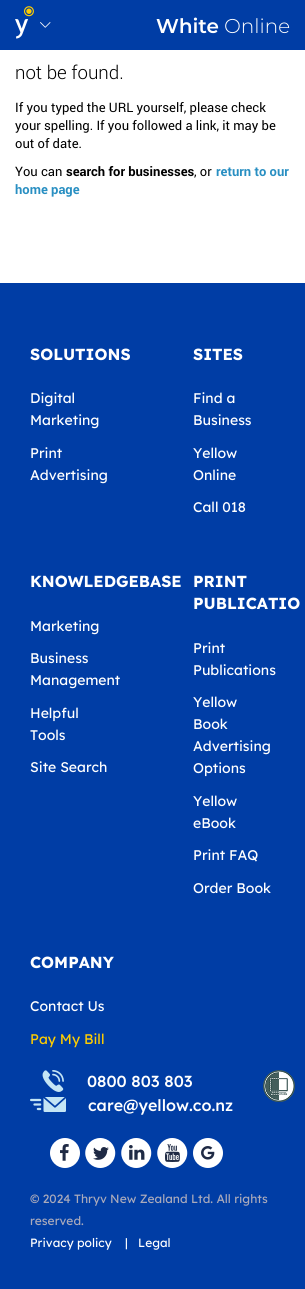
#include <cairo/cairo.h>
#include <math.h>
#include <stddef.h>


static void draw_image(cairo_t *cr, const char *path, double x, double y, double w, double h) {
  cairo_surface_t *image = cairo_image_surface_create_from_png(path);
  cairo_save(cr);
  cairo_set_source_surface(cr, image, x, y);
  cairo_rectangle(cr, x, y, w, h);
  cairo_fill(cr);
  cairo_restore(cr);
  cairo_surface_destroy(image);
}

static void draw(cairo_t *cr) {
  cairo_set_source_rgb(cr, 1, 1, 1);
  cairo_paint(cr);
  cairo_set_source_rgb(cr, 0, 61 / 255.0, 165 / 255.0);
  cairo_rectangle(cr, 0, 0, 305, 50);
  cairo_fill(cr);
  draw_image(cr, "images/1.png", 15, 6, 19, 33);
  draw_image(cr, "images/2.png", 40, 22, 11, 6);
  draw_image(cr, "images/3.png", 156, 17, 134, 17);
  cairo_rectangle(cr, 0, 283, 305, 1006);
  cairo_fill(cr);
  draw_image(cr, "images/4.png", 42, 1070, 22, 22);
  draw_image(cr, "images/5.png", 30, 1097, 36, 15);
  draw_image(cr, "images/6.png", 263, 1070, 32, 32);
  draw_image(cr, "images/7.png", 50, 1138, 30, 30);
  draw_image(cr, "images/8.png", 85, 1138, 31, 30);
  draw_image(cr, "images/9.png", 121, 1138, 31, 30);
  draw_image(cr, "images/10.png", 157, 1138, 31, 30);
  draw_image(cr, "images/11.png", 193, 1138, 30, 30);
  cairo_select_font_face(cr, "Roboto Light", CAIRO_FONT_SLANT_NORMAL, CAIRO_FONT_WEIGHT_NORMAL);
  cairo_set_font_size(cr, 18.75);
  cairo_set_source_rgb(cr, 0, 0, 0);
  cairo_move_to(cr, 15, 79);
  cairo_show_text(cr, "not be found.");
  cairo_select_font_face(cr, "Roboto", CAIRO_FONT_SLANT_NORMAL, CAIRO_FONT_WEIGHT_NORMAL);
  cairo_set_font_size(cr, 13);
  cairo_move_to(cr, 15, 112);
  cairo_show_text(cr, "If you typed the URL yourself, please check");
  cairo_move_to(cr, 15, 130);
  cairo_show_text(cr, "your spelling. If you followed a link, it may be");
  cairo_move_to(cr, 15, 148);
  cairo_show_text(cr, "out of date.");
  cairo_move_to(cr, 15, 176);
  cairo_show_text(cr, "You can");
  cairo_select_font_face(cr, "Roboto", CAIRO_FONT_SLANT_NORMAL, CAIRO_FONT_WEIGHT_BOLD);
  cairo_move_to(cr, 66, 176);
  cairo_show_text(cr, "search for businesses");
  cairo_select_font_face(cr, "Roboto", CAIRO_FONT_SLANT_NORMAL, CAIRO_FONT_WEIGHT_NORMAL);
  cairo_move_to(cr, 194, 176);
  cairo_show_text(cr, ", or");
  cairo_select_font_face(cr, "Roboto", CAIRO_FONT_SLANT_NORMAL, CAIRO_FONT_WEIGHT_BOLD);
  cairo_set_source_rgb(cr, 41 / 255.0, 143 / 255.0, 194 / 255.0);
  cairo_move_to(cr, 216, 176);
  cairo_show_text(cr, "return to our");
  cairo_move_to(cr, 15, 194);
  cairo_show_text(cr, "home page");
  cairo_select_font_face(cr, "Lexend Deca", CAIRO_FONT_SLANT_NORMAL, CAIRO_FONT_WEIGHT_BOLD);
  cairo_set_font_size(cr, 16);
  cairo_set_source_rgb(cr, 1, 1, 1);
  cairo_move_to(cr, 30, 360);
  cairo_show_text(cr, "SOLUTIONS");
  cairo_select_font_face(cr, "Lexend Deca", CAIRO_FONT_SLANT_NORMAL, CAIRO_FONT_WEIGHT_NORMAL);
  cairo_set_font_size(cr, 14);
  cairo_move_to(cr, 30, 403);
  cairo_show_text(cr, "Digital");
  cairo_move_to(cr, 30, 425);
  cairo_show_text(cr, "Marketing");
  cairo_move_to(cr, 30, 458);
  cairo_show_text(cr, "Print");
  cairo_move_to(cr, 30, 480);
  cairo_show_text(cr, "Advertising");
  cairo_select_font_face(cr, "Lexend Deca", CAIRO_FONT_SLANT_NORMAL, CAIRO_FONT_WEIGHT_BOLD);
  cairo_set_font_size(cr, 16);
  cairo_move_to(cr, 193, 360);
  cairo_show_text(cr, "SITES");
  cairo_select_font_face(cr, "Lexend Deca", CAIRO_FONT_SLANT_NORMAL, CAIRO_FONT_WEIGHT_NORMAL);
  cairo_set_font_size(cr, 14);
  cairo_move_to(cr, 193, 403);
  cairo_show_text(cr, "Find a");
  cairo_move_to(cr, 193, 425);
  cairo_show_text(cr, "Business");
  cairo_move_to(cr, 193, 458);
  cairo_show_text(cr, "Yellow");
  cairo_move_to(cr, 193, 480);
  cairo_show_text(cr, "Online");
  cairo_move_to(cr, 193, 512);
  cairo_show_text(cr, "Call 018");
  cairo_select_font_face(cr, "Lexend Deca", CAIRO_FONT_SLANT_NORMAL, CAIRO_FONT_WEIGHT_BOLD);
  cairo_set_font_size(cr, 16);
  cairo_move_to(cr, 30, 587);
  cairo_show_text(cr, "KNOWLEDGEBASE");
  cairo_select_font_face(cr, "Lexend Deca", CAIRO_FONT_SLANT_NORMAL, CAIRO_FONT_WEIGHT_NORMAL);
  cairo_set_font_size(cr, 14);
  cairo_move_to(cr, 30, 631);
  cairo_show_text(cr, "Marketing");
  cairo_move_to(cr, 30, 663);
  cairo_show_text(cr, "Business");
  cairo_move_to(cr, 30, 685);
  cairo_show_text(cr, "Management");
  cairo_move_to(cr, 30, 718);
  cairo_show_text(cr, "Helpful");
  cairo_move_to(cr, 30, 740);
  cairo_show_text(cr, "Tools");
  cairo_move_to(cr, 30, 772);
  cairo_show_text(cr, "Site Search");
  cairo_select_font_face(cr, "Lexend Deca", CAIRO_FONT_SLANT_NORMAL, CAIRO_FONT_WEIGHT_BOLD);
  cairo_set_font_size(cr, 16);
  cairo_move_to(cr, 193, 587);
  cairo_show_text(cr, "PRINT");
  cairo_move_to(cr, 193, 609);
  cairo_show_text(cr, "PUBLICATIO");
  cairo_select_font_face(cr, "Lexend Deca", CAIRO_FONT_SLANT_NORMAL, CAIRO_FONT_WEIGHT_NORMAL);
  cairo_set_font_size(cr, 14);
  cairo_move_to(cr, 193, 653);
  cairo_show_text(cr, "Print");
  cairo_move_to(cr, 193, 675);
  cairo_show_text(cr, "Publications");
  cairo_move_to(cr, 193, 707);
  cairo_show_text(cr, "Yellow");
  cairo_move_to(cr, 193, 729);
  cairo_show_text(cr, "Book");
  cairo_move_to(cr, 193, 751);
  cairo_show_text(cr, "Advertising");
  cairo_move_to(cr, 193, 773);
  cairo_show_text(cr, "Options");
  cairo_move_to(cr, 193, 806);
  cairo_show_text(cr, "Yellow");
  cairo_move_to(cr, 193, 828);
  cairo_show_text(cr, "eBook");
  cairo_move_to(cr, 193, 860);
  cairo_show_text(cr, "Print FAQ");
  cairo_move_to(cr, 193, 893);
  cairo_show_text(cr, "Order Book");
  cairo_select_font_face(cr, "Lexend Deca", CAIRO_FONT_SLANT_NORMAL, CAIRO_FONT_WEIGHT_BOLD);
  cairo_set_font_size(cr, 16);
  cairo_move_to(cr, 30, 968);
  cairo_show_text(cr, "COMPANY");
  cairo_select_font_face(cr, "Lexend Deca", CAIRO_FONT_SLANT_NORMAL, CAIRO_FONT_WEIGHT_NORMAL);
  cairo_set_font_size(cr, 14);
  cairo_move_to(cr, 30, 1011);
  cairo_show_text(cr, "Contact Us");
  cairo_set_source_rgb(cr, 1, 205 / 255.0, 0);
  cairo_move_to(cr, 30, 1044);
  cairo_show_text(cr, "Pay My Bill");
  cairo_select_font_face(cr, "Lexend Deca Medium", CAIRO_FONT_SLANT_NORMAL, CAIRO_FONT_WEIGHT_NORMAL);
  cairo_set_font_size(cr, 16);
  cairo_set_source_rgb(cr, 1, 1, 1);
  cairo_move_to(cr, 87, 1087);
  cairo_show_text(cr, "0800 803 803");
  cairo_move_to(cr, 88, 1111);
  cairo_show_text(cr, "care@yellow.co.nz");
  cairo_select_font_face(cr, "Lexend Deca", CAIRO_FONT_SLANT_NORMAL, CAIRO_FONT_WEIGHT_NORMAL);
  cairo_set_font_size(cr, 12);
  cairo_set_source_rgb(cr, 170 / 255.0, 170 / 255.0, 187 / 255.0);
  cairo_move_to(cr, 30, 1203);
  cairo_show_text(cr, "© 2024 Thryv New Zealand Ltd. All rights");
  cairo_move_to(cr, 30, 1225);
  cairo_show_text(cr, "reserved.");
  cairo_set_source_rgb(cr, 1, 1, 1);
  cairo_move_to(cr, 30, 1247);
  cairo_show_text(cr, "Privacy policy");
  cairo_move_to(cr, 125, 1247);
  cairo_show_text(cr, "|");
  cairo_move_to(cr, 138, 1247);
  cairo_show_text(cr, "Legal");
}

int main(void) {
  cairo_surface_t *surface = cairo_image_surface_create(CAIRO_FORMAT_RGB24, 305, 1289);
  cairo_t *cr = cairo_create(surface);
  cairo_font_options_t *options = cairo_font_options_create();
  cairo_font_options_set_hint_metrics(options, CAIRO_HINT_METRICS_OFF);
  cairo_font_options_set_hint_style(options, CAIRO_HINT_STYLE_NONE);
  cairo_set_font_options(cr, options);
  cairo_set_miter_limit(cr, 4);
  draw(cr);
  cairo_surface_write_to_png(surface, "out.png");
  cairo_font_options_destroy(options);
  cairo_destroy(cr);
  cairo_surface_destroy(surface);
  return 0;
}
